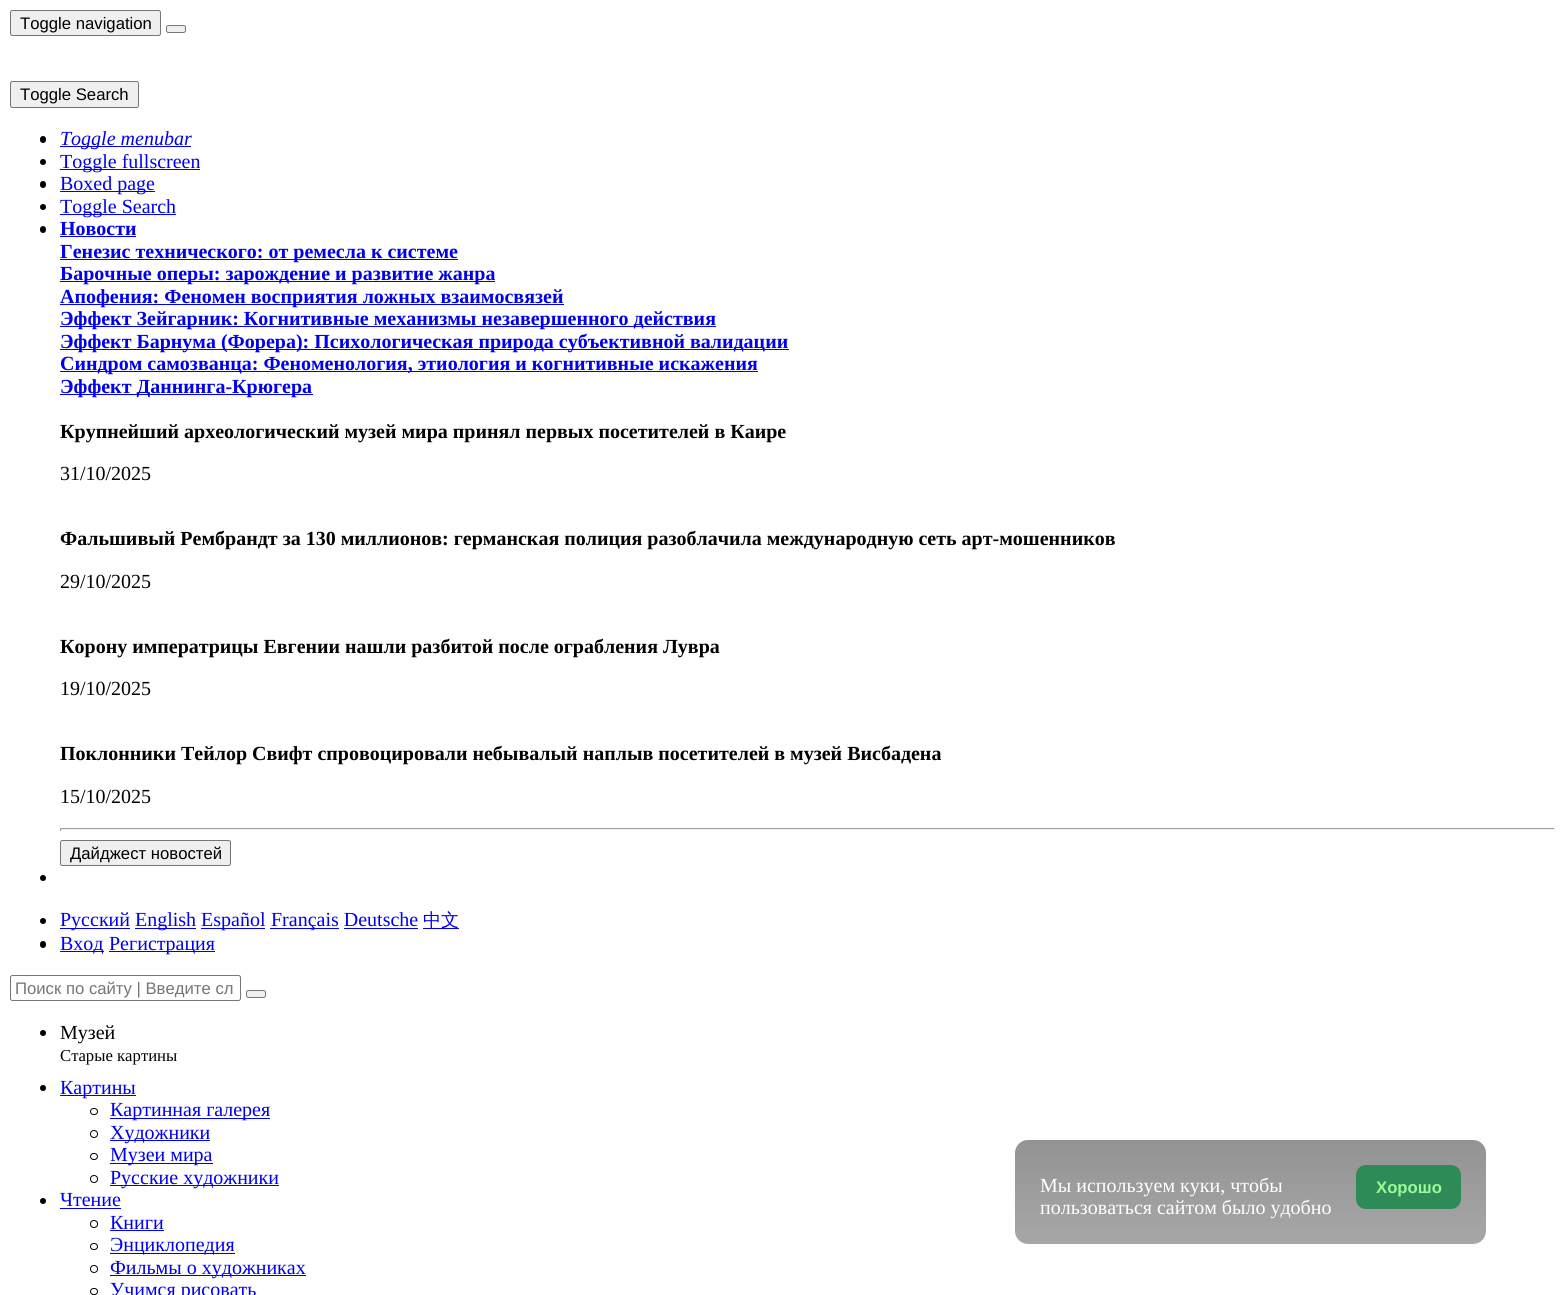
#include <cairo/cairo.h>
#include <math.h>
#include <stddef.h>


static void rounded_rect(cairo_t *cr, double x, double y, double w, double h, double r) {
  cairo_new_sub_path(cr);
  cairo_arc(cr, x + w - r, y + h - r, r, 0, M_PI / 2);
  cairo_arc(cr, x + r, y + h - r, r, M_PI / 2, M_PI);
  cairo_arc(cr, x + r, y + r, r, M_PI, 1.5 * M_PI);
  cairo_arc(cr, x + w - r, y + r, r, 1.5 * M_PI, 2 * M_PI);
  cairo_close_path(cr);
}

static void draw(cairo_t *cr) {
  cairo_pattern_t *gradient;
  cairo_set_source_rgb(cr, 1, 1, 1);
  cairo_paint(cr);
  cairo_set_source_rgb(cr, 239 / 255.0, 239 / 255.0, 239 / 255.0);
  rounded_rect(cr, 10.5, 10.5, 150, 25, 2);
  cairo_fill_preserve(cr);
  cairo_set_source_rgb(cr, 118 / 255.0, 118 / 255.0, 118 / 255.0);
  cairo_set_line_width(cr, 1);
  cairo_stroke(cr);
  cairo_set_source_rgb(cr, 239 / 255.0, 239 / 255.0, 239 / 255.0);
  rounded_rect(cr, 166.5, 25.5, 19, 7, 2);
  cairo_fill_preserve(cr);
  cairo_set_source_rgb(cr, 118 / 255.0, 118 / 255.0, 118 / 255.0);
  cairo_stroke(cr);
  cairo_set_source_rgb(cr, 239 / 255.0, 239 / 255.0, 239 / 255.0);
  rounded_rect(cr, 10.5, 81.5, 128, 26, 2);
  cairo_fill_preserve(cr);
  cairo_set_source_rgb(cr, 118 / 255.0, 118 / 255.0, 118 / 255.0);
  cairo_stroke(cr);
  cairo_set_source_rgb(cr, 0, 0, 0);
  rounded_rect(cr, 40, 136, 6, 7, 3);
  cairo_fill(cr);
  cairo_set_source_rgb(cr, 0, 0, 238 / 255.0);
  cairo_rectangle(cr, 60, 146, 131, 1);
  cairo_fill(cr);
  cairo_set_source_rgb(cr, 0, 0, 0);
  cairo_arc(cr, 43, 162, 3, 0, 2 * M_PI);
  cairo_fill(cr);
  cairo_set_source_rgb(cr, 0, 0, 238 / 255.0);
  cairo_rectangle(cr, 60, 169, 140, 1);
  cairo_fill(cr);
  cairo_set_source_rgb(cr, 0, 0, 0);
  rounded_rect(cr, 40, 181, 6, 7, 3);
  cairo_fill(cr);
  cairo_set_source_rgb(cr, 0, 0, 238 / 255.0);
  cairo_rectangle(cr, 60, 191, 95, 1);
  cairo_fill(cr);
  cairo_set_source_rgb(cr, 0, 0, 0);
  cairo_arc(cr, 43, 207, 3, 0, 2 * M_PI);
  cairo_fill(cr);
  cairo_set_source_rgb(cr, 0, 0, 238 / 255.0);
  cairo_rectangle(cr, 60, 214, 116, 1);
  cairo_fill(cr);
  cairo_set_source_rgb(cr, 0, 0, 0);
  rounded_rect(cr, 40, 226, 6, 7, 3);
  cairo_fill(cr);
  cairo_set_source_rgb(cr, 0, 0, 238 / 255.0);
  cairo_rectangle(cr, 60, 236, 76, 1);
  cairo_fill(cr);
  cairo_rectangle(cr, 60, 259, 398, 1);
  cairo_fill(cr);
  cairo_rectangle(cr, 60, 281, 435, 1);
  cairo_fill(cr);
  cairo_rectangle(cr, 60, 304, 504, 1);
  cairo_fill(cr);
  cairo_rectangle(cr, 60, 326, 656, 1);
  cairo_fill(cr);
  cairo_rectangle(cr, 60, 349, 729, 1);
  cairo_fill(cr);
  cairo_rectangle(cr, 60, 371, 698, 1);
  cairo_fill(cr);
  cairo_rectangle(cr, 60, 394, 253, 1);
  cairo_fill(cr);
  cairo_set_source_rgb(cr, 159 / 255.0, 159 / 255.0, 159 / 255.0);
  cairo_rectangle(cr, 60, 828, 1495, 1);
  cairo_fill(cr);
  cairo_set_source_rgb(cr, 238 / 255.0, 238 / 255.0, 238 / 255.0);
  cairo_rectangle(cr, 1554, 828, 1, 3);
  cairo_fill(cr);
  cairo_rectangle(cr, 60, 829, 1495, 1);
  cairo_fill(cr);
  cairo_set_source_rgb(cr, 159 / 255.0, 159 / 255.0, 159 / 255.0);
  cairo_rectangle(cr, 60, 828, 1, 3);
  cairo_fill(cr);
  cairo_set_source_rgb(cr, 239 / 255.0, 239 / 255.0, 239 / 255.0);
  rounded_rect(cr, 60.5, 840.5, 170, 25, 2);
  cairo_fill_preserve(cr);
  cairo_set_source_rgb(cr, 118 / 255.0, 118 / 255.0, 118 / 255.0);
  cairo_stroke(cr);
  cairo_set_source_rgb(cr, 0, 0, 0);
  cairo_arc(cr, 43, 878, 3, 0, 2 * M_PI);
  cairo_fill(cr);
  cairo_arc(cr, 43, 921, 3, 0, 2 * M_PI);
  cairo_fill(cr);
  cairo_set_source_rgb(cr, 0, 0, 238 / 255.0);
  cairo_rectangle(cr, 60, 928, 70, 1);
  cairo_fill(cr);
  cairo_rectangle(cr, 135, 928, 61, 1);
  cairo_fill(cr);
  cairo_rectangle(cr, 201, 928, 64, 1);
  cairo_fill(cr);
  cairo_rectangle(cr, 270, 928, 69, 1);
  cairo_fill(cr);
  cairo_rectangle(cr, 423, 928, 36, 1);
  cairo_fill(cr);
  cairo_rectangle(cr, 344, 928, 74, 1);
  cairo_fill(cr);
  cairo_set_source_rgb(cr, 0, 0, 0);
  rounded_rect(cr, 40, 941, 6, 7, 3);
  cairo_fill(cr);
  cairo_set_source_rgb(cr, 0, 0, 238 / 255.0);
  cairo_rectangle(cr, 60, 951, 44, 1);
  cairo_fill(cr);
  cairo_rectangle(cr, 109, 951, 106, 1);
  cairo_fill(cr);
  rounded_rect(cr, 10.5, 975.5, 230, 25, 2);
  cairo_set_source_rgb(cr, 118 / 255.0, 118 / 255.0, 118 / 255.0);
  cairo_stroke(cr);
  cairo_set_source_rgb(cr, 239 / 255.0, 239 / 255.0, 239 / 255.0);
  rounded_rect(cr, 246.5, 990.5, 19, 7, 2);
  cairo_fill_preserve(cr);
  cairo_set_source_rgb(cr, 118 / 255.0, 118 / 255.0, 118 / 255.0);
  cairo_stroke(cr);
  cairo_set_source_rgb(cr, 0, 0, 0);
  cairo_arc(cr, 43, 1033, 3, 0, 2 * M_PI);
  cairo_fill(cr);
  cairo_arc(cr, 43, 1088, 3, 0, 2 * M_PI);
  cairo_fill(cr);
  cairo_set_source_rgb(cr, 0, 0, 238 / 255.0);
  cairo_rectangle(cr, 60, 1095, 76, 1);
  cairo_fill(cr);
  rounded_rect(cr, 90.5, 1108.5, 7, 6, 3);
  cairo_set_source_rgb(cr, 0, 0, 0);
  cairo_stroke(cr);
  cairo_set_source_rgb(cr, 0, 0, 238 / 255.0);
  cairo_rectangle(cr, 110, 1118, 160, 1);
  cairo_fill(cr);
  cairo_arc(cr, 94, 1134, 3.5, 0, 2 * M_PI);
  cairo_set_source_rgb(cr, 0, 0, 0);
  cairo_stroke(cr);
  cairo_set_source_rgb(cr, 0, 0, 238 / 255.0);
  cairo_rectangle(cr, 110, 1140, 100, 1);
  cairo_fill(cr);
  rounded_rect(cr, 90.5, 1153.5, 7, 6, 3);
  cairo_set_source_rgb(cr, 0, 0, 0);
  cairo_stroke(cr);
  cairo_set_source_rgb(cr, 0, 0, 238 / 255.0);
  cairo_rectangle(cr, 110, 1163, 103, 1);
  cairo_fill(cr);
  cairo_arc(cr, 94, 1179, 3.5, 0, 2 * M_PI);
  cairo_set_source_rgb(cr, 0, 0, 0);
  cairo_stroke(cr);
  cairo_set_source_rgb(cr, 0, 0, 238 / 255.0);
  cairo_rectangle(cr, 110, 1185, 169, 1);
  cairo_fill(cr);
  cairo_set_source_rgb(cr, 0, 0, 0);
  cairo_arc(cr, 43, 1201, 3, 0, 2 * M_PI);
  cairo_fill(cr);
  cairo_set_source_rgb(cr, 0, 0, 238 / 255.0);
  cairo_rectangle(cr, 60, 1208, 61, 1);
  cairo_fill(cr);
  cairo_arc(cr, 94, 1224, 3.5, 0, 2 * M_PI);
  cairo_set_source_rgb(cr, 0, 0, 0);
  cairo_stroke(cr);
  cairo_set_source_rgb(cr, 0, 0, 238 / 255.0);
  cairo_rectangle(cr, 110, 1230, 54, 1);
  cairo_fill(cr);
  rounded_rect(cr, 90.5, 1243.5, 7, 6, 3);
  cairo_set_source_rgb(cr, 0, 0, 0);
  cairo_stroke(cr);
  cairo_set_source_rgb(cr, 0, 0, 238 / 255.0);
  cairo_rectangle(cr, 110, 1253, 125, 1);
  cairo_fill(cr);
  cairo_arc(cr, 94, 1269, 3.5, 0, 2 * M_PI);
  cairo_set_source_rgb(cr, 0, 0, 0);
  cairo_stroke(cr);
  cairo_set_source_rgb(cr, 0, 0, 238 / 255.0);
  cairo_rectangle(cr, 110, 1275, 196, 1);
  cairo_fill(cr);
  rounded_rect(cr, 90.5, 1288.5, 7, 6, 3);
  cairo_set_source_rgb(cr, 0, 0, 0);
  cairo_stroke(cr);
  gradient = cairo_pattern_create_linear(1251, 1244, 1251, 1140);
  cairo_pattern_add_color_stop_rgba(gradient, 0, 167 / 255.0, 167 / 255.0, 167 / 255.0, 1);
  cairo_pattern_add_color_stop_rgba(gradient, 1, 147 / 255.0, 147 / 255.0, 147 / 255.0, 1);
  cairo_set_source(cr, gradient);
  cairo_pattern_destroy(gradient);
  rounded_rect(cr, 1015, 1140, 471, 104, 13);
  cairo_fill(cr);
  cairo_set_source_rgb(cr, 46 / 255.0, 139 / 255.0, 87 / 255.0);
  rounded_rect(cr, 1356, 1165, 105, 44, 10);
  cairo_fill(cr);
  cairo_select_font_face(cr, "Liberation Sans", CAIRO_FONT_SLANT_NORMAL, CAIRO_FONT_WEIGHT_NORMAL);
  cairo_set_font_size(cr, 16.7);
  cairo_set_source_rgb(cr, 0, 0, 0);
  cairo_move_to(cr, 20, 29);
  cairo_show_text(cr, "Toggle navigation");
  cairo_move_to(cr, 20, 100);
  cairo_show_text(cr, "Toggle Search");
  cairo_select_font_face(cr, "Liberation Serif", CAIRO_FONT_SLANT_ITALIC, CAIRO_FONT_WEIGHT_NORMAL);
  cairo_set_font_size(cr, 20);
  cairo_set_source_rgb(cr, 0, 0, 238 / 255.0);
  cairo_move_to(cr, 60, 145);
  cairo_show_text(cr, "Toggle menubar");
  cairo_select_font_face(cr, "Liberation Serif", CAIRO_FONT_SLANT_NORMAL, CAIRO_FONT_WEIGHT_NORMAL);
  cairo_move_to(cr, 60, 168);
  cairo_show_text(cr, "Toggle fullscreen");
  cairo_move_to(cr, 60, 190);
  cairo_show_text(cr, "Boxed page");
  cairo_move_to(cr, 60, 213);
  cairo_show_text(cr, "Toggle Search");
  cairo_select_font_face(cr, "Liberation Serif", CAIRO_FONT_SLANT_NORMAL, CAIRO_FONT_WEIGHT_BOLD);
  cairo_move_to(cr, 60, 235);
  cairo_show_text(cr, "Новости");
  cairo_move_to(cr, 60, 258);
  cairo_show_text(cr, "Генезис технического: от ремесла к системе");
  cairo_move_to(cr, 60, 280);
  cairo_show_text(cr, "Барочные оперы: зарождение и развитие жанра");
  cairo_move_to(cr, 60, 303);
  cairo_show_text(cr, "Апофения: Феномен восприятия ложных взаимосвязей");
  cairo_move_to(cr, 60, 325);
  cairo_show_text(cr, "Эффект Зейгарник: Когнитивные механизмы незавершенного действия");
  cairo_move_to(cr, 60, 348);
  cairo_show_text(cr, "Эффект Барнума (Форера): Психологическая природа субъективной валидации");
  cairo_move_to(cr, 60, 370);
  cairo_show_text(cr, "Синдром самозванца: Феноменология, этиология и когнитивные искажения");
  cairo_move_to(cr, 60, 393);
  cairo_show_text(cr, "Эффект Даннинга-Крюгера");
  cairo_set_source_rgb(cr, 0, 0, 0);
  cairo_move_to(cr, 60, 438);
  cairo_show_text(cr, "Крупнейший археологический музей мира принял первых посетителей в Каире");
  cairo_select_font_face(cr, "Liberation Serif", CAIRO_FONT_SLANT_NORMAL, CAIRO_FONT_WEIGHT_NORMAL);
  cairo_move_to(cr, 60, 480);
  cairo_show_text(cr, "31/10/2025");
  cairo_select_font_face(cr, "Liberation Serif", CAIRO_FONT_SLANT_NORMAL, CAIRO_FONT_WEIGHT_BOLD);
  cairo_move_to(cr, 60, 545);
  cairo_show_text(cr, "Фальшивый Рембрандт за 130 миллионов: германская полиция разоблачила международную сеть арт-мошенников");
  cairo_select_font_face(cr, "Liberation Serif", CAIRO_FONT_SLANT_NORMAL, CAIRO_FONT_WEIGHT_NORMAL);
  cairo_move_to(cr, 60, 588);
  cairo_show_text(cr, "29/10/2025");
  cairo_select_font_face(cr, "Liberation Serif", CAIRO_FONT_SLANT_NORMAL, CAIRO_FONT_WEIGHT_BOLD);
  cairo_move_to(cr, 60, 653);
  cairo_show_text(cr, "Корону императрицы Евгении нашли разбитой после ограбления Лувра");
  cairo_select_font_face(cr, "Liberation Serif", CAIRO_FONT_SLANT_NORMAL, CAIRO_FONT_WEIGHT_NORMAL);
  cairo_move_to(cr, 60, 695);
  cairo_show_text(cr, "19/10/2025");
  cairo_select_font_face(cr, "Liberation Serif", CAIRO_FONT_SLANT_NORMAL, CAIRO_FONT_WEIGHT_BOLD);
  cairo_move_to(cr, 60, 760);
  cairo_show_text(cr, "Поклонники Тейлор Свифт спровоцировали небывалый наплыв посетителей в музей Висбадена");
  cairo_select_font_face(cr, "Liberation Serif", CAIRO_FONT_SLANT_NORMAL, CAIRO_FONT_WEIGHT_NORMAL);
  cairo_move_to(cr, 60, 803);
  cairo_show_text(cr, "15/10/2025");
  cairo_select_font_face(cr, "Liberation Sans", CAIRO_FONT_SLANT_NORMAL, CAIRO_FONT_WEIGHT_NORMAL);
  cairo_set_font_size(cr, 16.7);
  cairo_move_to(cr, 70, 859);
  cairo_show_text(cr, "Дайджест новостей");
  cairo_select_font_face(cr, "Liberation Serif", CAIRO_FONT_SLANT_NORMAL, CAIRO_FONT_WEIGHT_NORMAL);
  cairo_set_font_size(cr, 20);
  cairo_set_source_rgb(cr, 0, 0, 238 / 255.0);
  cairo_move_to(cr, 60, 926);
  cairo_show_text(cr, "Русский");
  cairo_move_to(cr, 135, 926);
  cairo_show_text(cr, "English");
  cairo_move_to(cr, 201, 926);
  cairo_show_text(cr, "Español");
  cairo_move_to(cr, 271, 926);
  cairo_show_text(cr, "Français Deutsche");
  cairo_select_font_face(cr, "WenQuanYi Zen Hei Medium", CAIRO_FONT_SLANT_NORMAL, CAIRO_FONT_WEIGHT_NORMAL);
  cairo_set_font_size(cr, 18);
  cairo_move_to(cr, 423, 926);
  cairo_show_text(cr, "中文");
  cairo_select_font_face(cr, "Liberation Serif", CAIRO_FONT_SLANT_NORMAL, CAIRO_FONT_WEIGHT_NORMAL);
  cairo_set_font_size(cr, 20);
  cairo_move_to(cr, 60, 950);
  cairo_show_text(cr, "Вход");
  cairo_move_to(cr, 109, 950);
  cairo_show_text(cr, "Регистрация");
  cairo_select_font_face(cr, "Liberation Sans", CAIRO_FONT_SLANT_NORMAL, CAIRO_FONT_WEIGHT_NORMAL);
  cairo_set_font_size(cr, 16.7);
  cairo_set_source_rgb(cr, 117 / 255.0, 117 / 255.0, 117 / 255.0);
  cairo_move_to(cr, 15, 994);
  cairo_show_text(cr, "Поиск по сайту | Введите сл");
  cairo_select_font_face(cr, "Liberation Serif", CAIRO_FONT_SLANT_NORMAL, CAIRO_FONT_WEIGHT_NORMAL);
  cairo_set_font_size(cr, 20);
  cairo_set_source_rgb(cr, 0, 0, 0);
  cairo_move_to(cr, 60, 1039);
  cairo_show_text(cr, "Музей");
  cairo_set_font_size(cr, 16.7);
  cairo_move_to(cr, 60, 1061);
  cairo_show_text(cr, "Старые картины");
  cairo_set_font_size(cr, 20);
  cairo_set_source_rgb(cr, 0, 0, 238 / 255.0);
  cairo_move_to(cr, 60, 1094);
  cairo_show_text(cr, "Картины");
  cairo_move_to(cr, 110, 1116);
  cairo_show_text(cr, "Картинная галерея");
  cairo_move_to(cr, 110, 1139);
  cairo_show_text(cr, "Художники");
  cairo_move_to(cr, 110, 1161);
  cairo_show_text(cr, "Музеи мира");
  cairo_move_to(cr, 110, 1184);
  cairo_show_text(cr, "Русские художники");
  cairo_move_to(cr, 60, 1206);
  cairo_show_text(cr, "Чтение");
  cairo_move_to(cr, 110, 1229);
  cairo_show_text(cr, "Книги");
  cairo_move_to(cr, 110, 1251);
  cairo_show_text(cr, "Энциклопедия");
  cairo_move_to(cr, 110, 1274);
  cairo_show_text(cr, "Фильмы о художниках");
  cairo_move_to(cr, 110, 1296);
  cairo_show_text(cr, "Учимся рисовать");
  cairo_set_source_rgb(cr, 1, 1, 1);
  cairo_move_to(cr, 1040, 1192);
  cairo_show_text(cr, "Мы используем куки, чтобы");
  cairo_move_to(cr, 1040, 1214);
  cairo_show_text(cr, "пользоваться сайтом было удобно");
  cairo_select_font_face(cr, "Liberation Sans", CAIRO_FONT_SLANT_NORMAL, CAIRO_FONT_WEIGHT_BOLD);
  cairo_set_font_size(cr, 16.7);
  cairo_set_source_rgb(cr, 152 / 255.0, 251 / 255.0, 152 / 255.0);
  cairo_move_to(cr, 1376, 1193);
  cairo_show_text(cr, "Хорошо");
}

int main(void) {
  cairo_surface_t *surface = cairo_image_surface_create(CAIRO_FORMAT_RGB24, 1565, 1295);
  cairo_t *cr = cairo_create(surface);
  cairo_font_options_t *options = cairo_font_options_create();
  cairo_font_options_set_hint_metrics(options, CAIRO_HINT_METRICS_OFF);
  cairo_font_options_set_hint_style(options, CAIRO_HINT_STYLE_NONE);
  cairo_set_font_options(cr, options);
  cairo_set_miter_limit(cr, 4);
  draw(cr);
  cairo_surface_write_to_png(surface, "out.png");
  cairo_font_options_destroy(options);
  cairo_destroy(cr);
  cairo_surface_destroy(surface);
  return 0;
}
